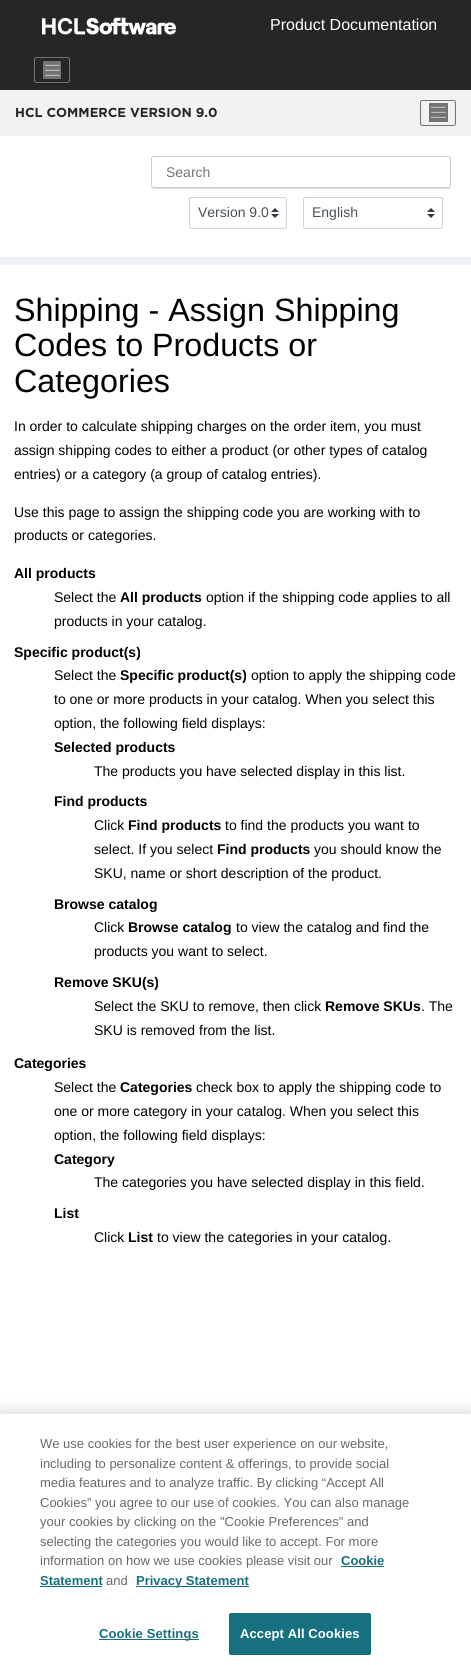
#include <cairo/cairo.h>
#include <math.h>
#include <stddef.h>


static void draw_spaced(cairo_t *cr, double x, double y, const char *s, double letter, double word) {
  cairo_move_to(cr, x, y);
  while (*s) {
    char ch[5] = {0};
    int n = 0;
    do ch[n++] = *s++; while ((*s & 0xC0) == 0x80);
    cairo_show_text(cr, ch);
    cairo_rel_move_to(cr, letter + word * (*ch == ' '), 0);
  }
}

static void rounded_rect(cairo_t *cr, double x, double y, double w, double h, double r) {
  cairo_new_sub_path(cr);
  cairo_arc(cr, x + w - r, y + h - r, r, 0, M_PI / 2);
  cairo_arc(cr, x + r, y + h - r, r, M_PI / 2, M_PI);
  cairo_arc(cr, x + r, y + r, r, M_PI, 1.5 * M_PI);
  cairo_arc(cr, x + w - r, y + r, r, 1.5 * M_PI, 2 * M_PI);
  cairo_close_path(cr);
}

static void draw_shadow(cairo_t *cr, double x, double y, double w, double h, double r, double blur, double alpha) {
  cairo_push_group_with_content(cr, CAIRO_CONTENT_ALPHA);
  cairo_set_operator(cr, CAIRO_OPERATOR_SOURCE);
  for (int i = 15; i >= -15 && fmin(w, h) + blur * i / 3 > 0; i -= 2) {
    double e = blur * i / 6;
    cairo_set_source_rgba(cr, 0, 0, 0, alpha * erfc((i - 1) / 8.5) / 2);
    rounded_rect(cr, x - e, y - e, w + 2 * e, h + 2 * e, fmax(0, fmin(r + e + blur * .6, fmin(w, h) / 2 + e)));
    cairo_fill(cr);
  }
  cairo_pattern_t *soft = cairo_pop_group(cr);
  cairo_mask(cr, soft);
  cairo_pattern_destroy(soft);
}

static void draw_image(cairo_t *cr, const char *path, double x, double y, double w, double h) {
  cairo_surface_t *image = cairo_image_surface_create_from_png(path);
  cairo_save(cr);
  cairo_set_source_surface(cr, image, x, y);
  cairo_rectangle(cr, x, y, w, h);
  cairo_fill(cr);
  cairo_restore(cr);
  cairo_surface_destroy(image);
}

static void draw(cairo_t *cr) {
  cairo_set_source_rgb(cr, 1, 1, 1);
  cairo_paint(cr);
  cairo_set_source_rgb(cr, 38 / 255.0, 38 / 255.0, 38 / 255.0);
  cairo_rectangle(cr, 0, 0, 471, 90);
  cairo_fill(cr);
  draw_image(cr, "images/1.png", 42, 17, 134, 18);
  rounded_rect(cr, 34.5, 57.5, 35, 25, 2);
  cairo_set_source_rgb(cr, 115 / 255.0, 115 / 255.0, 115 / 255.0);
  cairo_set_line_width(cr, 1);
  cairo_stroke(cr);
  cairo_rectangle(cr, 43, 61, 18, 18);
  cairo_fill(cr);
  draw_image(cr, "images/2.png", 45, 64, 15, 12);
  cairo_set_source_rgb(cr, 242 / 255.0, 242 / 255.0, 242 / 255.0);
  cairo_rectangle(cr, 0, 90, 471, 46);
  cairo_fill(cr);
  rounded_rect(cr, 420.5, 100.5, 35, 25, 2);
  cairo_set_source_rgb(cr, 115 / 255.0, 115 / 255.0, 115 / 255.0);
  cairo_stroke(cr);
  cairo_rectangle(cr, 429, 103, 19, 19);
  cairo_fill(cr);
  draw_image(cr, "images/2.png", 431, 106, 15, 12);
  cairo_set_source_rgb(cr, 222 / 255.0, 229 / 255.0, 231 / 255.0);
  cairo_rectangle(cr, 151, 188, 300, 1);
  cairo_fill(cr);
  rounded_rect(cr, 151.5, 156.5, 299, 31, 2.5);
  cairo_set_source_rgb(cr, 204 / 255.0, 204 / 255.0, 204 / 255.0);
  cairo_stroke(cr);
  draw_image(cr, "images/3.png", 271, 208, 8, 10);
  rounded_rect(cr, 189.5, 197.5, 97, 31, 2);
  cairo_set_source_rgb(cr, 206 / 255.0, 212 / 255.0, 218 / 255.0);
  cairo_stroke(cr);
  draw_image(cr, "images/3.png", 427, 208, 8, 10);
  rounded_rect(cr, 303.5, 197.5, 139, 31, 2);
  cairo_stroke(cr);
  cairo_set_source_rgb(cr, 236 / 255.0, 242 / 255.0, 249 / 255.0);
  cairo_rectangle(cr, 0, 257, 471, 8);
  cairo_fill(cr);
  cairo_set_source_rgb(cr, 0, 0, 0);
  draw_shadow(cr, 0, 1414, 471, 251, 0, 9, 0.2);
  cairo_set_source_rgb(cr, 1, 1, 1);
  cairo_rectangle(cr, 0, 1414, 471, 251);
  cairo_fill(cr);
  cairo_set_source_rgb(cr, 23 / 255.0, 112 / 255.0, 127 / 255.0);
  cairo_rectangle(cr, 341, 1566, 43, 1);
  cairo_fill(cr);
  cairo_rectangle(cr, 40, 1586, 62, 1);
  cairo_fill(cr);
  cairo_rectangle(cr, 136, 1586, 113, 1);
  cairo_fill(cr);
  cairo_rectangle(cr, 99, 1639, 100, 1);
  cairo_fill(cr);
  rounded_rect(cr, 229.5, 1613.5, 141, 41, 1.5);
  cairo_fill_preserve(cr);
  cairo_stroke(cr);
  cairo_select_font_face(cr, "Liberation Sans", CAIRO_FONT_SLANT_NORMAL, CAIRO_FONT_WEIGHT_NORMAL);
  cairo_set_font_size(cr, 16);
  cairo_set_source_rgb(cr, 1, 1, 1);
  cairo_move_to(cr, 270, 30);
  cairo_show_text(cr, "Product Documentation");
  cairo_select_font_face(cr, "Gotham", CAIRO_FONT_SLANT_NORMAL, CAIRO_FONT_WEIGHT_BOLD);
  cairo_set_font_size(cr, 13);
  cairo_set_source_rgb(cr, 38 / 255.0, 38 / 255.0, 38 / 255.0);
  cairo_move_to(cr, 15, 117);
  cairo_show_text(cr, "HCL COMMERCE VERSION 9.0");
  cairo_select_font_face(cr, "Liberation Sans", CAIRO_FONT_SLANT_NORMAL, CAIRO_FONT_WEIGHT_NORMAL);
  cairo_set_font_size(cr, 14);
  cairo_set_source_rgb(cr, 117 / 255.0, 117 / 255.0, 117 / 255.0);
  cairo_move_to(cr, 166, 177);
  cairo_show_text(cr, "Search");
  cairo_set_source_rgb(cr, 73 / 255.0, 80 / 255.0, 87 / 255.0);
  cairo_move_to(cr, 198, 217);
  cairo_show_text(cr, "Version 9.0");
  cairo_move_to(cr, 312, 217);
  cairo_show_text(cr, "English");
  cairo_set_font_size(cr, 32.25);
  cairo_set_source_rgb(cr, 0, 0, 0);
  cairo_move_to(cr, 14, 321);
  cairo_show_text(cr, "Shipping - Assign Shipping");
  cairo_move_to(cr, 14, 356);
  cairo_show_text(cr, "Codes to Products or");
  cairo_move_to(cr, 14, 392);
  cairo_show_text(cr, "Categories");
  cairo_set_font_size(cr, 14);
  cairo_move_to(cr, 14, 431);
  cairo_show_text(cr, "In order to calculate shipping charges on the order item, you must");
  cairo_move_to(cr, 14, 455);
  cairo_show_text(cr, "assign shipping codes to either a product (or other types of catalog");
  cairo_move_to(cr, 14, 479);
  cairo_show_text(cr, "entries) or a category (a group of catalog entries).");
  cairo_move_to(cr, 14, 517);
  cairo_show_text(cr, "Use this page to assign the shipping code you are working with to");
  cairo_move_to(cr, 14, 540);
  cairo_show_text(cr, "products or categories.");
  cairo_select_font_face(cr, "Liberation Sans", CAIRO_FONT_SLANT_NORMAL, CAIRO_FONT_WEIGHT_BOLD);
  cairo_move_to(cr, 14, 578);
  cairo_show_text(cr, "All products");
  cairo_select_font_face(cr, "Liberation Sans", CAIRO_FONT_SLANT_NORMAL, CAIRO_FONT_WEIGHT_NORMAL);
  cairo_move_to(cr, 54, 602);
  cairo_show_text(cr, "Select the");
  cairo_select_font_face(cr, "Liberation Sans", CAIRO_FONT_SLANT_NORMAL, CAIRO_FONT_WEIGHT_BOLD);
  cairo_move_to(cr, 120, 602);
  cairo_show_text(cr, "All products");
  cairo_select_font_face(cr, "Liberation Sans", CAIRO_FONT_SLANT_NORMAL, CAIRO_FONT_WEIGHT_NORMAL);
  cairo_move_to(cr, 206, 602);
  cairo_show_text(cr, "option if the shipping code applies to all");
  cairo_move_to(cr, 54, 626);
  cairo_show_text(cr, "products in your catalog.");
  cairo_select_font_face(cr, "Liberation Sans", CAIRO_FONT_SLANT_NORMAL, CAIRO_FONT_WEIGHT_BOLD);
  cairo_move_to(cr, 14, 657);
  cairo_show_text(cr, "Specific product(s)");
  cairo_select_font_face(cr, "Liberation Sans", CAIRO_FONT_SLANT_NORMAL, CAIRO_FONT_WEIGHT_NORMAL);
  cairo_move_to(cr, 54, 680);
  cairo_show_text(cr, "Select the");
  cairo_select_font_face(cr, "Liberation Sans", CAIRO_FONT_SLANT_NORMAL, CAIRO_FONT_WEIGHT_BOLD);
  cairo_move_to(cr, 120, 680);
  cairo_show_text(cr, "Specific product(s)");
  cairo_select_font_face(cr, "Liberation Sans", CAIRO_FONT_SLANT_NORMAL, CAIRO_FONT_WEIGHT_NORMAL);
  cairo_move_to(cr, 251, 680);
  cairo_show_text(cr, "option to apply the shipping code");
  cairo_move_to(cr, 54, 704);
  cairo_show_text(cr, "to one or more products in your catalog. When you select this");
  cairo_move_to(cr, 54, 728);
  cairo_show_text(cr, "option, the following field displays:");
  cairo_select_font_face(cr, "Liberation Sans", CAIRO_FONT_SLANT_NORMAL, CAIRO_FONT_WEIGHT_BOLD);
  cairo_move_to(cr, 54, 752);
  cairo_show_text(cr, "Selected products");
  cairo_select_font_face(cr, "Liberation Sans", CAIRO_FONT_SLANT_NORMAL, CAIRO_FONT_WEIGHT_NORMAL);
  cairo_move_to(cr, 94, 776);
  cairo_show_text(cr, "The products you have selected display in this list.");
  cairo_select_font_face(cr, "Liberation Sans", CAIRO_FONT_SLANT_NORMAL, CAIRO_FONT_WEIGHT_BOLD);
  cairo_move_to(cr, 54, 806);
  cairo_show_text(cr, "Find products");
  cairo_select_font_face(cr, "Liberation Sans", CAIRO_FONT_SLANT_NORMAL, CAIRO_FONT_WEIGHT_NORMAL);
  cairo_move_to(cr, 94, 830);
  cairo_show_text(cr, "Click");
  cairo_select_font_face(cr, "Liberation Sans", CAIRO_FONT_SLANT_NORMAL, CAIRO_FONT_WEIGHT_BOLD);
  cairo_move_to(cr, 128, 830);
  cairo_show_text(cr, "Find products");
  cairo_select_font_face(cr, "Liberation Sans", CAIRO_FONT_SLANT_NORMAL, CAIRO_FONT_WEIGHT_NORMAL);
  cairo_move_to(cr, 225, 830);
  cairo_show_text(cr, "to find the products you want to");
  cairo_move_to(cr, 94, 854);
  cairo_show_text(cr, "select. If you select");
  cairo_select_font_face(cr, "Liberation Sans", CAIRO_FONT_SLANT_NORMAL, CAIRO_FONT_WEIGHT_BOLD);
  cairo_move_to(cr, 217, 854);
  cairo_show_text(cr, "Find products");
  cairo_select_font_face(cr, "Liberation Sans", CAIRO_FONT_SLANT_NORMAL, CAIRO_FONT_WEIGHT_NORMAL);
  cairo_move_to(cr, 314, 854);
  cairo_show_text(cr, "you should know the");
  cairo_move_to(cr, 94, 878);
  cairo_show_text(cr, "SKU, name or short description of the product.");
  cairo_select_font_face(cr, "Liberation Sans", CAIRO_FONT_SLANT_NORMAL, CAIRO_FONT_WEIGHT_BOLD);
  cairo_move_to(cr, 54, 909);
  cairo_show_text(cr, "Browse catalog");
  cairo_select_font_face(cr, "Liberation Sans", CAIRO_FONT_SLANT_NORMAL, CAIRO_FONT_WEIGHT_NORMAL);
  cairo_move_to(cr, 94, 932);
  cairo_show_text(cr, "Click");
  cairo_select_font_face(cr, "Liberation Sans", CAIRO_FONT_SLANT_NORMAL, CAIRO_FONT_WEIGHT_BOLD);
  cairo_move_to(cr, 128, 932);
  cairo_show_text(cr, "Browse catalog");
  cairo_select_font_face(cr, "Liberation Sans", CAIRO_FONT_SLANT_NORMAL, CAIRO_FONT_WEIGHT_NORMAL);
  cairo_move_to(cr, 236, 932);
  cairo_show_text(cr, "to view the catalog and find the");
  cairo_move_to(cr, 94, 956);
  cairo_show_text(cr, "products you want to select.");
  cairo_select_font_face(cr, "Liberation Sans", CAIRO_FONT_SLANT_NORMAL, CAIRO_FONT_WEIGHT_BOLD);
  cairo_move_to(cr, 54, 987);
  cairo_show_text(cr, "Remove SKU(s)");
  cairo_select_font_face(cr, "Liberation Sans", CAIRO_FONT_SLANT_NORMAL, CAIRO_FONT_WEIGHT_NORMAL);
  cairo_move_to(cr, 94, 1011);
  cairo_show_text(cr, "Select the SKU to remove, then click");
  cairo_select_font_face(cr, "Liberation Sans", CAIRO_FONT_SLANT_NORMAL, CAIRO_FONT_WEIGHT_BOLD);
  cairo_move_to(cr, 325, 1011);
  cairo_show_text(cr, "Remove SKUs");
  cairo_select_font_face(cr, "Liberation Sans", CAIRO_FONT_SLANT_NORMAL, CAIRO_FONT_WEIGHT_NORMAL);
  cairo_move_to(cr, 421, 1011);
  cairo_show_text(cr, ". The");
  cairo_move_to(cr, 94, 1035);
  cairo_show_text(cr, "SKU is removed from the list.");
  cairo_select_font_face(cr, "Liberation Sans", CAIRO_FONT_SLANT_NORMAL, CAIRO_FONT_WEIGHT_BOLD);
  cairo_move_to(cr, 14, 1068);
  cairo_show_text(cr, "Categories");
  cairo_select_font_face(cr, "Liberation Sans", CAIRO_FONT_SLANT_NORMAL, CAIRO_FONT_WEIGHT_NORMAL);
  cairo_move_to(cr, 54, 1092);
  cairo_show_text(cr, "Select the");
  cairo_select_font_face(cr, "Liberation Sans", CAIRO_FONT_SLANT_NORMAL, CAIRO_FONT_WEIGHT_BOLD);
  cairo_move_to(cr, 120, 1092);
  cairo_show_text(cr, "Categories");
  cairo_select_font_face(cr, "Liberation Sans", CAIRO_FONT_SLANT_NORMAL, CAIRO_FONT_WEIGHT_NORMAL);
  cairo_move_to(cr, 196, 1092);
  cairo_show_text(cr, "check box to apply the shipping code to");
  cairo_move_to(cr, 54, 1116);
  cairo_show_text(cr, "one or more category in your catalog. When you select this");
  cairo_move_to(cr, 54, 1140);
  cairo_show_text(cr, "option, the following field displays:");
  cairo_select_font_face(cr, "Liberation Sans", CAIRO_FONT_SLANT_NORMAL, CAIRO_FONT_WEIGHT_BOLD);
  cairo_move_to(cr, 54, 1164);
  cairo_show_text(cr, "Category");
  cairo_select_font_face(cr, "Liberation Sans", CAIRO_FONT_SLANT_NORMAL, CAIRO_FONT_WEIGHT_NORMAL);
  cairo_move_to(cr, 94, 1187);
  cairo_show_text(cr, "The categories you have selected display in this field.");
  cairo_select_font_face(cr, "Liberation Sans", CAIRO_FONT_SLANT_NORMAL, CAIRO_FONT_WEIGHT_BOLD);
  cairo_move_to(cr, 54, 1218);
  cairo_show_text(cr, "List");
  cairo_select_font_face(cr, "Liberation Sans", CAIRO_FONT_SLANT_NORMAL, CAIRO_FONT_WEIGHT_NORMAL);
  cairo_move_to(cr, 94, 1242);
  cairo_show_text(cr, "Click");
  cairo_select_font_face(cr, "Liberation Sans", CAIRO_FONT_SLANT_NORMAL, CAIRO_FONT_WEIGHT_BOLD);
  cairo_move_to(cr, 128, 1242);
  cairo_show_text(cr, "List");
  cairo_select_font_face(cr, "Liberation Sans", CAIRO_FONT_SLANT_NORMAL, CAIRO_FONT_WEIGHT_NORMAL);
  cairo_move_to(cr, 157, 1242);
  cairo_show_text(cr, "to view the categories in your catalog.");
  cairo_set_font_size(cr, 13);
  cairo_set_source_rgb(cr, 105 / 255.0, 105 / 255.0, 105 / 255.0);
  cairo_move_to(cr, 40, 1448);
  cairo_show_text(cr, "We use cookies for the best user experience on our website,");
  cairo_move_to(cr, 40, 1468);
  cairo_show_text(cr, "including to personalize content & offerings, to provide social");
  cairo_move_to(cr, 40, 1487);
  cairo_show_text(cr, "media features and to analyze traffic. By clicking “Accept All");
  cairo_move_to(cr, 40, 1507);
  cairo_show_text(cr, "Cookies” you agree to our use of cookies. You can also manage");
  cairo_move_to(cr, 40, 1526);
  cairo_show_text(cr, "your cookies by clicking on the \"Cookie Preferences\" and");
  cairo_move_to(cr, 40, 1546);
  cairo_show_text(cr, "selecting the categories you would like to accept. For more");
  cairo_move_to(cr, 40, 1565);
  cairo_show_text(cr, "information on how we use cookies please visit our");
  cairo_select_font_face(cr, "Liberation Sans", CAIRO_FONT_SLANT_NORMAL, CAIRO_FONT_WEIGHT_BOLD);
  cairo_set_source_rgb(cr, 23 / 255.0, 112 / 255.0, 127 / 255.0);
  cairo_move_to(cr, 341, 1565);
  cairo_show_text(cr, "Cookie");
  cairo_move_to(cr, 40, 1585);
  cairo_show_text(cr, "Statement");
  cairo_select_font_face(cr, "Liberation Sans", CAIRO_FONT_SLANT_NORMAL, CAIRO_FONT_WEIGHT_NORMAL);
  cairo_set_source_rgb(cr, 105 / 255.0, 105 / 255.0, 105 / 255.0);
  cairo_move_to(cr, 106, 1585);
  cairo_show_text(cr, "and");
  cairo_select_font_face(cr, "Liberation Sans", CAIRO_FONT_SLANT_NORMAL, CAIRO_FONT_WEIGHT_BOLD);
  cairo_set_source_rgb(cr, 23 / 255.0, 112 / 255.0, 127 / 255.0);
  cairo_move_to(cr, 136, 1585);
  cairo_show_text(cr, "Privacy Statement");
  draw_spaced(cr, 99, 1638, "Cookie Settings", 0.1, 0);
  cairo_set_source_rgb(cr, 1, 1, 1);
  draw_spaced(cr, 240, 1638, "Accept All Cookies", 0.1, 0);
}

int main(void) {
  cairo_surface_t *surface = cairo_image_surface_create(CAIRO_FORMAT_RGB24, 471, 1665);
  cairo_t *cr = cairo_create(surface);
  cairo_font_options_t *options = cairo_font_options_create();
  cairo_font_options_set_hint_metrics(options, CAIRO_HINT_METRICS_OFF);
  cairo_font_options_set_hint_style(options, CAIRO_HINT_STYLE_NONE);
  cairo_set_font_options(cr, options);
  cairo_set_miter_limit(cr, 4);
  draw(cr);
  cairo_surface_write_to_png(surface, "out.png");
  cairo_font_options_destroy(options);
  cairo_destroy(cr);
  cairo_surface_destroy(surface);
  return 0;
}
